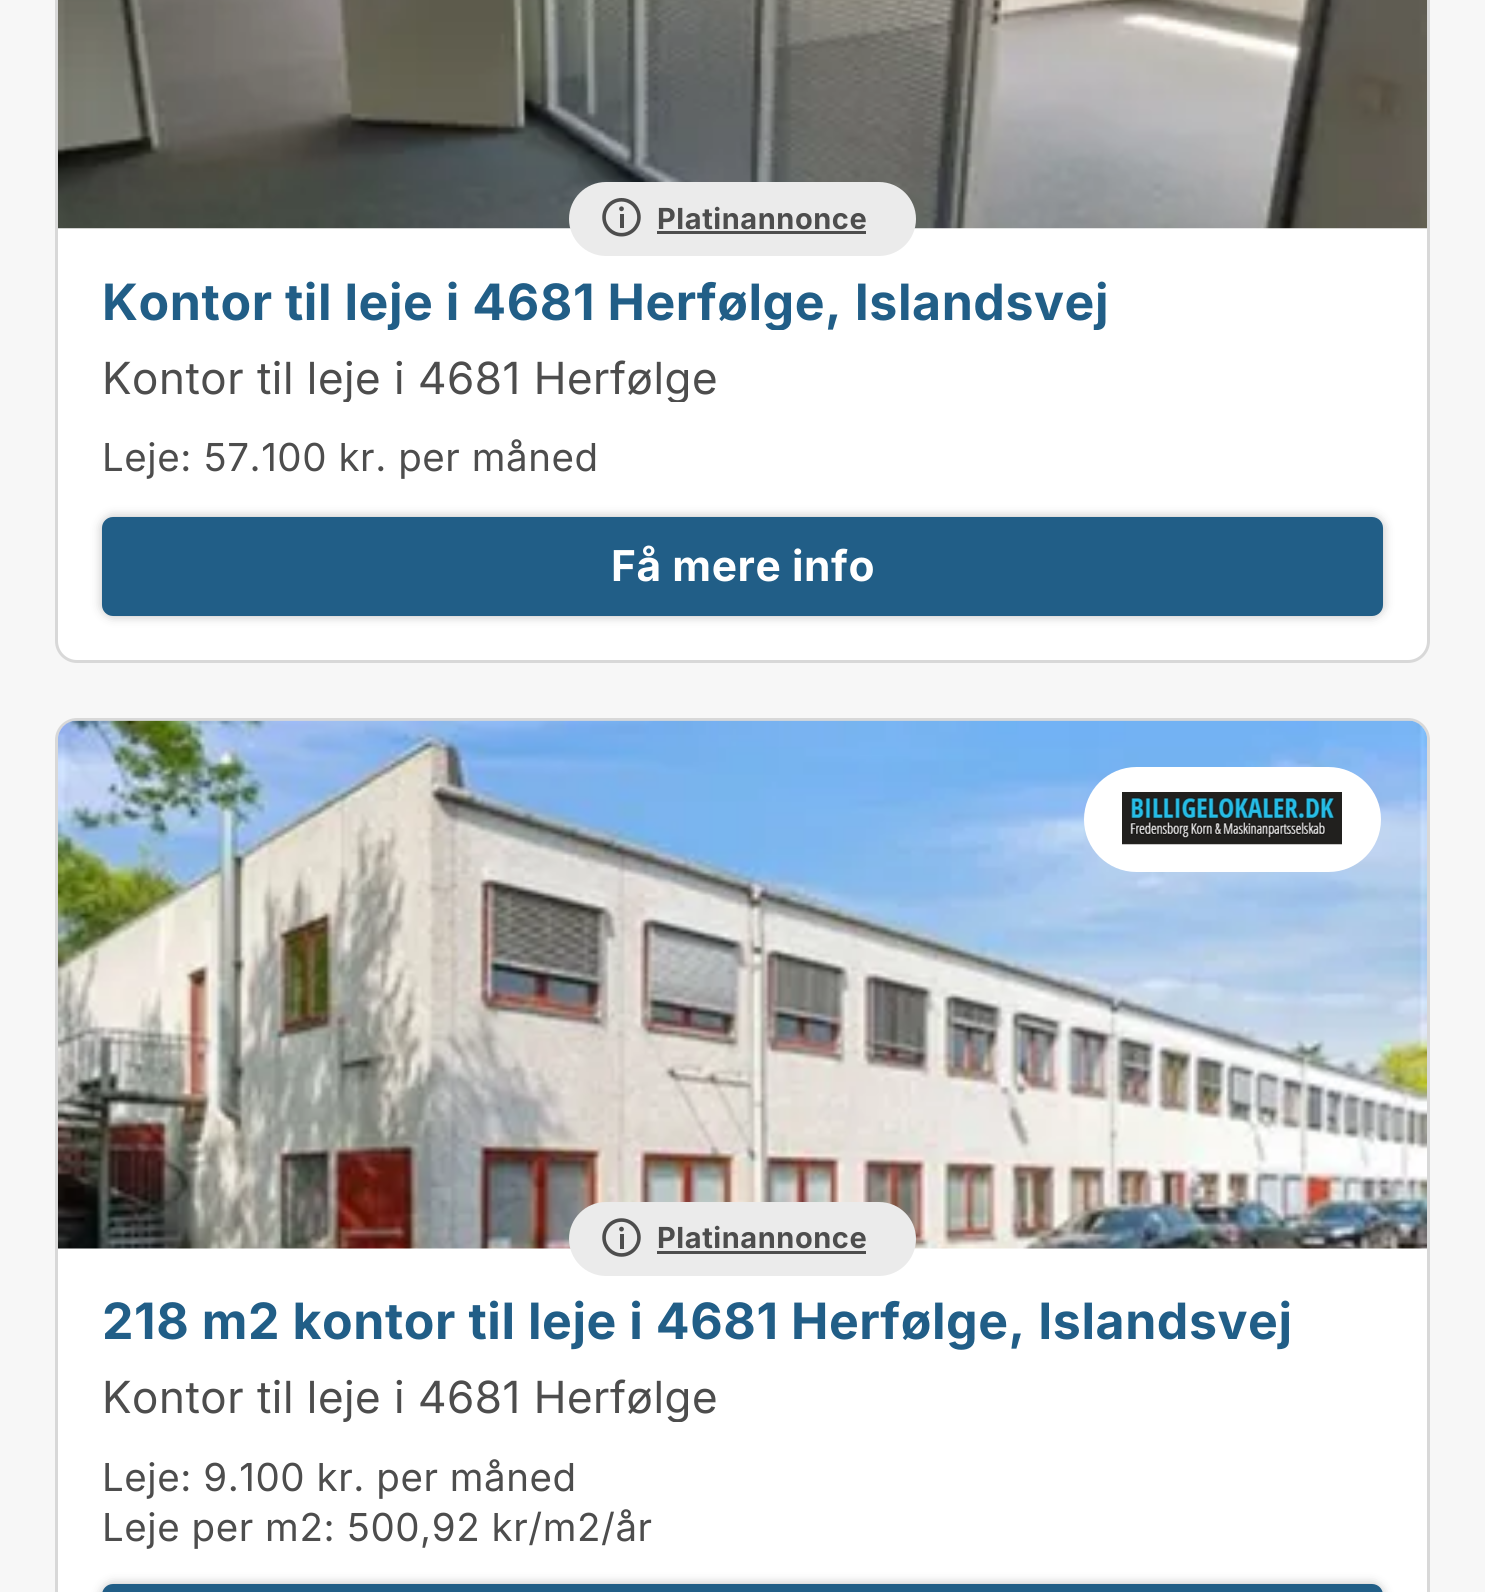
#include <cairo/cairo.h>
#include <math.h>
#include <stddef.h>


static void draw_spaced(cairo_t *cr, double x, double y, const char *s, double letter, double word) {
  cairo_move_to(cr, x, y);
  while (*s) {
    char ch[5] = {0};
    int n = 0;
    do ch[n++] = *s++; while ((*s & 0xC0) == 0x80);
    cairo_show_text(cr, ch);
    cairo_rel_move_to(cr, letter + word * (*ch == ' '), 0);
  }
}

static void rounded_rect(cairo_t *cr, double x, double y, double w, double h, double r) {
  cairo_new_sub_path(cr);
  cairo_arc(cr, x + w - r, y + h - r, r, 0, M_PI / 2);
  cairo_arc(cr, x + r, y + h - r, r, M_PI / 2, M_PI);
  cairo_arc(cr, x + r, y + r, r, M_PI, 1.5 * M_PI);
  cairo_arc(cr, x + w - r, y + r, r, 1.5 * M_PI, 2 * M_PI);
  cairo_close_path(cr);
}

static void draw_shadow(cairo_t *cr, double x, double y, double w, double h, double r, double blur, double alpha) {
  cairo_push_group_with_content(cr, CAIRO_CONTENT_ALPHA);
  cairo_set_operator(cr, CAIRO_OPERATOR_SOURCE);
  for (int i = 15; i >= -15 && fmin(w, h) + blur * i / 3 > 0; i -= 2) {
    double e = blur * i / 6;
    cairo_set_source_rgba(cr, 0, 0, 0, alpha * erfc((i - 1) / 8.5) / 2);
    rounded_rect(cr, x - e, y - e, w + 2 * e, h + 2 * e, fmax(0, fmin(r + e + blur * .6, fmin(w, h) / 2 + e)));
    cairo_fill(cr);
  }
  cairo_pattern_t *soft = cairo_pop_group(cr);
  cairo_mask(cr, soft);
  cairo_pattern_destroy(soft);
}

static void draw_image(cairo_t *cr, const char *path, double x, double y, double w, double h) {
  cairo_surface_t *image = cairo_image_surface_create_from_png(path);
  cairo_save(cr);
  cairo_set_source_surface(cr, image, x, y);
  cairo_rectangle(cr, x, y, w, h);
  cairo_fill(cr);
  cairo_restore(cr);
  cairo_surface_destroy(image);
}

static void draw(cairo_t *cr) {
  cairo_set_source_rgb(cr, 247 / 255.0, 247 / 255.0, 247 / 255.0);
  cairo_paint(cr);
  cairo_set_source_rgb(cr, 1, 1, 1);
  rounded_rect(cr, 56.5, -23.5, 1372, 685, 20.5);
  cairo_fill_preserve(cr);
  cairo_set_source_rgb(cr, 216 / 255.0, 216 / 255.0, 216 / 255.0);
  cairo_set_line_width(cr, 3);
  cairo_stroke(cr);
  draw_image(cr, "images/1.png", 58, 0, 1369, 229);
  cairo_set_source_rgb(cr, 235 / 255.0, 235 / 255.0, 235 / 255.0);
  rounded_rect(cr, 569, 182, 347, 74, 37);
  cairo_fill(cr);
  draw_image(cr, "images/2.png", 602, 198, 39, 39);
  cairo_set_source_rgb(cr, 77 / 255.0, 77 / 255.0, 77 / 255.0);
  cairo_rectangle(cr, 657, 231, 209, 3);
  cairo_fill(cr);
  cairo_set_source_rgb(cr, 0, 0, 0);
  draw_shadow(cr, 102, 517, 1281, 99, 11, 5.5, 0.25);
  cairo_set_source_rgb(cr, 33 / 255.0, 94 / 255.0, 135 / 255.0);
  rounded_rect(cr, 102, 517, 1281, 99, 11);
  cairo_fill(cr);
  cairo_set_source_rgb(cr, 1, 1, 1);
  rounded_rect(cr, 56.5, 719.5, 1372, 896, 20.5);
  cairo_fill_preserve(cr);
  cairo_set_source_rgb(cr, 216 / 255.0, 216 / 255.0, 216 / 255.0);
  cairo_stroke(cr);
  draw_image(cr, "images/3.png", 58, 720, 1369, 529);
  cairo_set_source_rgb(cr, 1, 1, 1);
  rounded_rect(cr, 1084, 767, 297, 105, 52.5);
  cairo_fill(cr);
  draw_image(cr, "images/4.png", 1122, 792, 220, 53);
  cairo_set_source_rgb(cr, 235 / 255.0, 235 / 255.0, 235 / 255.0);
  rounded_rect(cr, 569, 1202, 347, 74, 37);
  cairo_fill(cr);
  draw_image(cr, "images/5.png", 602, 1218, 39, 39);
  cairo_set_source_rgb(cr, 77 / 255.0, 77 / 255.0, 77 / 255.0);
  cairo_rectangle(cr, 657, 1251, 209, 3);
  cairo_fill(cr);
  cairo_set_source_rgb(cr, 0, 0, 0);
  draw_shadow(cr, 102, 1584, 1281, 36, 11, 5.5, 0.25);
  cairo_set_source_rgb(cr, 33 / 255.0, 94 / 255.0, 135 / 255.0);
  rounded_rect(cr, 102, 1584, 1281, 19, 11);
  cairo_fill(cr);
  cairo_select_font_face(cr, "Inter", CAIRO_FONT_SLANT_NORMAL, CAIRO_FONT_WEIGHT_BOLD);
  cairo_set_font_size(cr, 29);
  cairo_set_source_rgb(cr, 77 / 255.0, 77 / 255.0, 77 / 255.0);
  draw_spaced(cr, 657, 229, "Platinannonce", 0.55, 0);
  cairo_save(cr);
  cairo_rectangle(cr, 102, 272, 1281, 58);
  cairo_clip(cr);
  cairo_set_font_size(cr, 50.05);
  cairo_set_source_rgb(cr, 33 / 255.0, 94 / 255.0, 135 / 255.0);
  draw_spaced(cr, 102, 320, "Kontor til leje i 4681 Herfølge, Islandsvej", 0.55, 0);
  cairo_restore(cr);
  cairo_save(cr);
  cairo_rectangle(cr, 102, 352, 1281, 50);
  cairo_clip(cr);
  cairo_select_font_face(cr, "Inter", CAIRO_FONT_SLANT_NORMAL, CAIRO_FONT_WEIGHT_NORMAL);
  cairo_set_font_size(cr, 44.25);
  draw_spaced(cr, 102, 394, "Kontor til leje i 4681 Herfølge", 0.55, 0);
  cairo_restore(cr);
  cairo_select_font_face(cr, "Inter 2", CAIRO_FONT_SLANT_NORMAL, CAIRO_FONT_WEIGHT_NORMAL);
  cairo_set_font_size(cr, 38.5);
  draw_spaced(cr, 102, 471, "Leje: 57.100 kr. per måned", 0.55, 0);
  cairo_select_font_face(cr, "Inter", CAIRO_FONT_SLANT_NORMAL, CAIRO_FONT_WEIGHT_BOLD);
  cairo_set_font_size(cr, 42.5);
  cairo_set_source_rgb(cr, 1, 1, 1);
  draw_spaced(cr, 611, 581, "Få mere info", 0.55, 0);
  cairo_set_font_size(cr, 29);
  cairo_set_source_rgb(cr, 77 / 255.0, 77 / 255.0, 77 / 255.0);
  draw_spaced(cr, 657, 1248, "Platinannonce", 0.55, 0);
  cairo_set_font_size(cr, 50.05);
  cairo_set_source_rgb(cr, 33 / 255.0, 94 / 255.0, 135 / 255.0);
  draw_spaced(cr, 102, 1339, "218 m2 kontor til leje i 4681 Herfølge, Islandsvej", 0.55, 0);
  cairo_save(cr);
  cairo_rectangle(cr, 102, 1372, 1281, 50);
  cairo_clip(cr);
  cairo_select_font_face(cr, "Inter", CAIRO_FONT_SLANT_NORMAL, CAIRO_FONT_WEIGHT_NORMAL);
  cairo_set_font_size(cr, 44.25);
  cairo_set_source_rgb(cr, 77 / 255.0, 77 / 255.0, 77 / 255.0);
  draw_spaced(cr, 102, 1413, "Kontor til leje i 4681 Herfølge", 0.55, 0);
  cairo_restore(cr);
  cairo_select_font_face(cr, "Inter 2", CAIRO_FONT_SLANT_NORMAL, CAIRO_FONT_WEIGHT_NORMAL);
  cairo_set_font_size(cr, 38.5);
  cairo_set_source_rgb(cr, 77 / 255.0, 77 / 255.0, 77 / 255.0);
  draw_spaced(cr, 102, 1491, "Leje: 9.100 kr. per måned", 0.55, 0);
  draw_spaced(cr, 102, 1541, "Leje per m2: 500,92 kr/m2/år", 0.55, 0);
}

int main(void) {
  cairo_surface_t *surface = cairo_image_surface_create(CAIRO_FORMAT_RGB24, 1485, 1592);
  cairo_t *cr = cairo_create(surface);
  cairo_font_options_t *options = cairo_font_options_create();
  cairo_font_options_set_hint_metrics(options, CAIRO_HINT_METRICS_OFF);
  cairo_font_options_set_hint_style(options, CAIRO_HINT_STYLE_NONE);
  cairo_set_font_options(cr, options);
  cairo_set_miter_limit(cr, 4);
  draw(cr);
  cairo_surface_write_to_png(surface, "out.png");
  cairo_font_options_destroy(options);
  cairo_destroy(cr);
  cairo_surface_destroy(surface);
  return 0;
}
